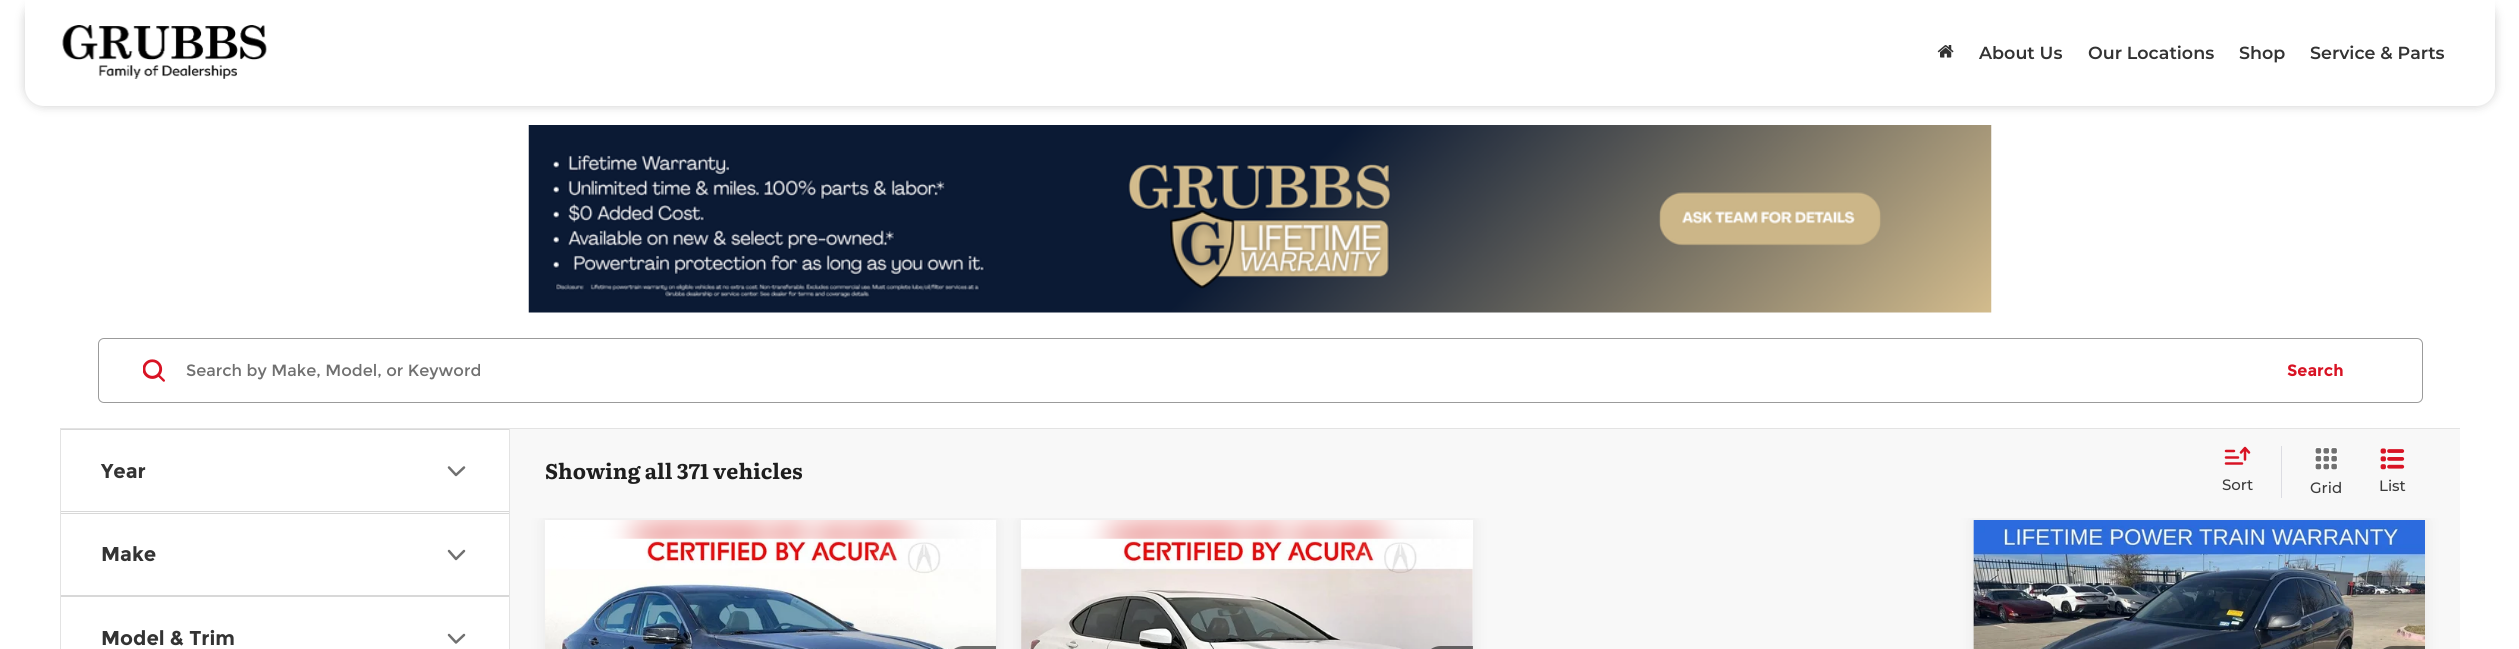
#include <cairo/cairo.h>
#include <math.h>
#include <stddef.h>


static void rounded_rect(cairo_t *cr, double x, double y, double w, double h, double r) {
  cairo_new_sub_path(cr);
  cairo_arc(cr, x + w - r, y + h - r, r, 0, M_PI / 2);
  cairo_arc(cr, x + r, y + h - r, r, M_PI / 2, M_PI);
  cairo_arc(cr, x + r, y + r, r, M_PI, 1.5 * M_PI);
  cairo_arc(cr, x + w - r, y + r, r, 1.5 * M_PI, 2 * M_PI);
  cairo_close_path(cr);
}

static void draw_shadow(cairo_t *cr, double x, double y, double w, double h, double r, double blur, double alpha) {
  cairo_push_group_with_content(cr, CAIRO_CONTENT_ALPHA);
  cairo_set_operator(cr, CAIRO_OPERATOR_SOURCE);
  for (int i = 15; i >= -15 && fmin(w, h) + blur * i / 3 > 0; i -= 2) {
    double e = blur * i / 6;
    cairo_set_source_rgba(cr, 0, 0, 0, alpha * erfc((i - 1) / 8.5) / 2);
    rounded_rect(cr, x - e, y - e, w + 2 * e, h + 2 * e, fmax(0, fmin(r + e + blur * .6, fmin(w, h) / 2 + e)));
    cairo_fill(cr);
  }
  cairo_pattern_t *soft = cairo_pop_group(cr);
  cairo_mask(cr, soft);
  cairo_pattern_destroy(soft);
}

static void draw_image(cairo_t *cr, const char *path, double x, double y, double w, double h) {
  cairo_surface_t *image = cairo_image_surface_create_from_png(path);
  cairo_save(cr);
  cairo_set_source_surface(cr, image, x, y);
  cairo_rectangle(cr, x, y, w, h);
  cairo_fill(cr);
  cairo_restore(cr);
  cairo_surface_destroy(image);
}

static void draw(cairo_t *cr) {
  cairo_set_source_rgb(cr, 1, 1, 1);
  cairo_paint(cr);
  cairo_set_source_rgb(cr, 0, 0, 0);
  draw_shadow(cr, 25, 0, 2470, 106, 19, 5, 0.2);
  cairo_set_source_rgb(cr, 1, 1, 1);
  cairo_new_path(cr);
  cairo_move_to(cr, 25, 0);
  cairo_line_to(cr, 2495, 0);
  cairo_line_to(cr, 2495, 87);
  cairo_curve_to(cr, 2495, 97.5, 2486.5, 106, 2476, 106);
  cairo_line_to(cr, 44, 106);
  cairo_curve_to(cr, 33.5, 106, 25, 97.5, 25, 87);
  cairo_close_path(cr);
  cairo_fill(cr);
  draw_image(cr, "images/1.png", 62, 25, 205, 54);
  draw_image(cr, "images/2.png", 1937, 45, 17, 13);
  draw_image(cr, "images/3.png", 528, 125, 1464, 188);
  cairo_set_source_rgb(cr, 248 / 255.0, 248 / 255.0, 248 / 255.0);
  cairo_rectangle(cr, 510, 518, 1950, 131);
  cairo_fill(cr);
  cairo_set_source_rgb(cr, 227 / 255.0, 227 / 255.0, 227 / 255.0);
  cairo_rectangle(cr, 60, 428, 2400, 1);
  cairo_fill(cr);
  rounded_rect(cr, 98.5, 338.5, 2324, 64, 5.5);
  cairo_set_source_rgb(cr, 155 / 255.0, 155 / 255.0, 155 / 255.0);
  cairo_set_line_width(cr, 1);
  cairo_stroke(cr);
  draw_image(cr, "images/4.png", 143, 359, 22, 23);
  cairo_set_source_rgb(cr, 0, 0, 0);
  draw_shadow(cr, 545, 520, 451, 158, 0, 9.5, 0.07);
  cairo_set_source_rgb(cr, 1, 1, 1);
  cairo_rectangle(cr, 545, 520, 451, 19);
  cairo_fill(cr);
  draw_image(cr, "images/7.png", 545, 520, 452, 129);
  cairo_set_source_rgb(cr, 0, 0, 0);
  draw_shadow(cr, 1021, 520, 452, 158, 0, 9.5, 0.07);
  draw_shadow(cr, 1974, 520, 451, 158, 0, 9.5, 0.07);
  cairo_set_source_rgb(cr, 248 / 255.0, 248 / 255.0, 248 / 255.0);
  cairo_rectangle(cr, 510, 429, 1950, 89);
  cairo_fill(cr);
  cairo_new_path(cr);
  cairo_move_to(cr, 2226, 463.5);
  cairo_line_to(cr, 2242, 463.5);
  cairo_move_to(cr, 2226, 457.5);
  cairo_line_to(cr, 2238, 457.5);
  cairo_move_to(cr, 2226, 451);
  cairo_line_to(cr, 2234, 451);
  cairo_move_to(cr, 2245, 459.5);
  cairo_line_to(cr, 2245, 448);
  cairo_move_to(cr, 2245, 448);
  cairo_line_to(cr, 2249, 452.5);
  cairo_move_to(cr, 2245, 448);
  cairo_line_to(cr, 2241, 452.5);
  cairo_set_source_rgb(cr, 216 / 255.0, 19 / 255.0, 36 / 255.0);
  cairo_set_line_width(cr, 2.5);
  cairo_set_line_cap(cr, CAIRO_LINE_CAP_ROUND);
  cairo_set_line_join(cr, CAIRO_LINE_JOIN_ROUND);
  cairo_stroke(cr);
  cairo_set_source_rgb(cr, 220 / 255.0, 220 / 255.0, 226 / 255.0);
  cairo_rectangle(cr, 2281, 446, 1, 52);
  cairo_fill(cr);
  draw_image(cr, "images/5.png", 2314, 447, 24, 23);
  draw_image(cr, "images/6.png", 2380, 448, 25, 22);
  cairo_set_source_rgb(cr, 227 / 255.0, 227 / 255.0, 227 / 255.0);
  cairo_rectangle(cr, 509, 429, 1, 220);
  cairo_fill(cr);
  cairo_rectangle(cr, 60, 429, 1, 220);
  cairo_fill(cr);
  cairo_set_source_rgb(cr, 216 / 255.0, 216 / 255.0, 216 / 255.0);
  cairo_rectangle(cr, 61, 429, 448, 1);
  cairo_fill(cr);
  cairo_rectangle(cr, 61, 511, 448, 1);
  cairo_fill(cr);
  cairo_new_path(cr);
  cairo_move_to(cr, 449, 467.5);
  cairo_line_to(cr, 456, 475);
  cairo_line_to(cr, 464, 467.5);
  cairo_set_source_rgb(cr, 112 / 255.0, 112 / 255.0, 112 / 255.0);
  cairo_stroke(cr);
  cairo_set_source_rgb(cr, 216 / 255.0, 216 / 255.0, 216 / 255.0);
  cairo_rectangle(cr, 61, 513, 448, 1);
  cairo_fill(cr);
  cairo_rectangle(cr, 61, 595, 448, 2);
  cairo_fill(cr);
  cairo_new_path(cr);
  cairo_move_to(cr, 449, 551);
  cairo_line_to(cr, 456, 559);
  cairo_line_to(cr, 464, 551);
  cairo_set_source_rgb(cr, 112 / 255.0, 112 / 255.0, 112 / 255.0);
  cairo_stroke(cr);
  cairo_new_path(cr);
  cairo_move_to(cr, 449, 635);
  cairo_line_to(cr, 456, 642.5);
  cairo_line_to(cr, 464, 635);
  cairo_stroke(cr);
  draw_image(cr, "images/8.png", 545, 538, 451, 111);
  cairo_set_source_rgba(cr, 0, 0, 0, 0.55);
  cairo_new_path(cr);
  cairo_move_to(cr, 964, 646);
  cairo_line_to(cr, 996, 646);
  cairo_line_to(cr, 996, 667);
  cairo_line_to(cr, 964, 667);
  cairo_curve_to(cr, 954, 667, 946, 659, 946, 649);
  cairo_line_to(cr, 946, 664);
  cairo_curve_to(cr, 946, 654, 954, 646, 964, 646);
  cairo_close_path(cr);
  cairo_fill(cr);
  cairo_set_source_rgb(cr, 1, 1, 1);
  cairo_rectangle(cr, 1021, 520, 452, 129);
  cairo_fill(cr);
  draw_image(cr, "images/9.png", 1021, 520, 452, 129);
  draw_image(cr, "images/10.png", 1021, 538, 452, 111);
  cairo_set_source_rgba(cr, 0, 0, 0, 0.55);
  cairo_new_path(cr);
  cairo_move_to(cr, 1441, 646);
  cairo_line_to(cr, 1473, 646);
  cairo_line_to(cr, 1473, 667);
  cairo_line_to(cr, 1441, 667);
  cairo_curve_to(cr, 1431, 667, 1423, 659, 1423, 649);
  cairo_line_to(cr, 1423, 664);
  cairo_curve_to(cr, 1423, 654, 1431, 646, 1441, 646);
  cairo_close_path(cr);
  cairo_fill(cr);
  draw_image(cr, "images/11.png", 1973, 520, 1, 129);
  draw_image(cr, "images/12.png", 1973, 520, 452, 129);
  cairo_new_path(cr);
  cairo_move_to(cr, 2393, 646);
  cairo_line_to(cr, 2425, 646);
  cairo_line_to(cr, 2425, 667);
  cairo_line_to(cr, 2393, 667);
  cairo_curve_to(cr, 2383, 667, 2375, 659, 2375, 649);
  cairo_line_to(cr, 2375, 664);
  cairo_curve_to(cr, 2375, 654, 2383, 646, 2393, 646);
  cairo_close_path(cr);
  cairo_fill(cr);
  cairo_select_font_face(cr, "Montserrat SemiBold", CAIRO_FONT_SLANT_NORMAL, CAIRO_FONT_WEIGHT_NORMAL);
  cairo_set_font_size(cr, 17.5);
  cairo_set_source_rgb(cr, 51 / 255.0, 51 / 255.0, 51 / 255.0);
  cairo_move_to(cr, 1979, 59);
  cairo_show_text(cr, "About Us");
  cairo_move_to(cr, 2088, 59);
  cairo_show_text(cr, "Our Locations");
  cairo_move_to(cr, 2239, 59);
  cairo_show_text(cr, "Shop");
  cairo_move_to(cr, 2310, 59);
  cairo_show_text(cr, "Service & Parts");
  cairo_select_font_face(cr, "Montserrat", CAIRO_FONT_SLANT_NORMAL, CAIRO_FONT_WEIGHT_NORMAL);
  cairo_set_font_size(cr, 16.25);
  cairo_set_source_rgb(cr, 112 / 255.0, 112 / 255.0, 112 / 255.0);
  cairo_move_to(cr, 186, 376);
  cairo_show_text(cr, "Search by Make, Model, or Keyword");
  cairo_select_font_face(cr, "Montserrat", CAIRO_FONT_SLANT_NORMAL, CAIRO_FONT_WEIGHT_BOLD);
  cairo_set_source_rgb(cr, 216 / 255.0, 19 / 255.0, 36 / 255.0);
  cairo_move_to(cr, 2287, 376);
  cairo_show_text(cr, "Search");
  cairo_select_font_face(cr, "Literata", CAIRO_FONT_SLANT_NORMAL, CAIRO_FONT_WEIGHT_BOLD);
  cairo_set_font_size(cr, 21.25);
  cairo_set_source_rgb(cr, 30 / 255.0, 30 / 255.0, 30 / 255.0);
  cairo_move_to(cr, 545, 479);
  cairo_show_text(cr, "Showing all 371 vehicles");
  cairo_select_font_face(cr, "Montserrat Medium", CAIRO_FONT_SLANT_NORMAL, CAIRO_FONT_WEIGHT_NORMAL);
  cairo_set_font_size(cr, 15);
  cairo_set_source_rgb(cr, 59 / 255.0, 59 / 255.0, 59 / 255.0);
  cairo_move_to(cr, 2222, 490);
  cairo_show_text(cr, "Sort");
  cairo_move_to(cr, 2310, 493);
  cairo_show_text(cr, "Grid");
  cairo_move_to(cr, 2379, 491);
  cairo_show_text(cr, "List");
  cairo_select_font_face(cr, "Montserrat", CAIRO_FONT_SLANT_NORMAL, CAIRO_FONT_WEIGHT_BOLD);
  cairo_set_font_size(cr, 20);
  cairo_set_source_rgb(cr, 51 / 255.0, 51 / 255.0, 51 / 255.0);
  cairo_move_to(cr, 101, 478);
  cairo_show_text(cr, "Year");
  cairo_move_to(cr, 101, 561);
  cairo_show_text(cr, "Make");
  cairo_move_to(cr, 101, 645);
  cairo_show_text(cr, "Model & Trim");
}

int main(void) {
  cairo_surface_t *surface = cairo_image_surface_create(CAIRO_FORMAT_RGB24, 2519, 649);
  cairo_t *cr = cairo_create(surface);
  cairo_font_options_t *options = cairo_font_options_create();
  cairo_font_options_set_hint_metrics(options, CAIRO_HINT_METRICS_OFF);
  cairo_font_options_set_hint_style(options, CAIRO_HINT_STYLE_NONE);
  cairo_set_font_options(cr, options);
  cairo_set_miter_limit(cr, 4);
  draw(cr);
  cairo_surface_write_to_png(surface, "out.png");
  cairo_font_options_destroy(options);
  cairo_destroy(cr);
  cairo_surface_destroy(surface);
  return 0;
}
